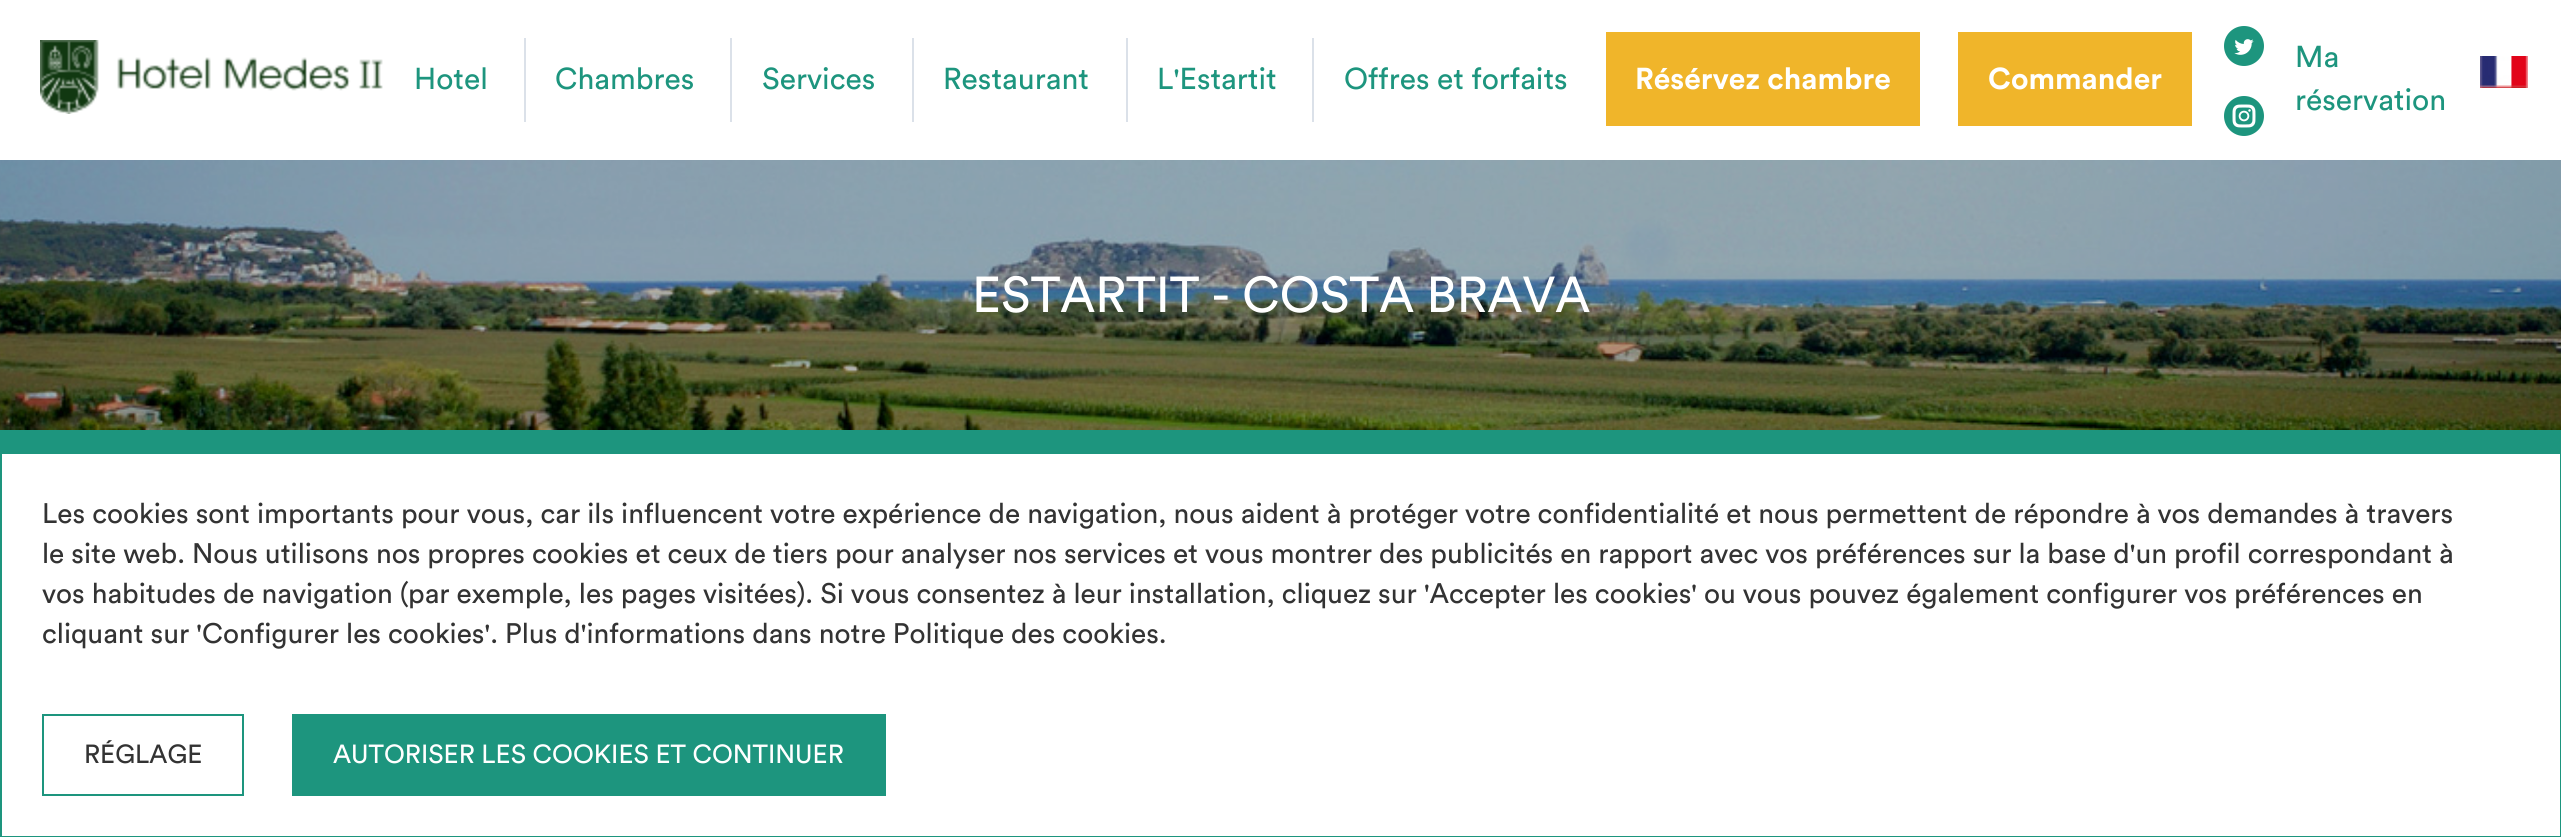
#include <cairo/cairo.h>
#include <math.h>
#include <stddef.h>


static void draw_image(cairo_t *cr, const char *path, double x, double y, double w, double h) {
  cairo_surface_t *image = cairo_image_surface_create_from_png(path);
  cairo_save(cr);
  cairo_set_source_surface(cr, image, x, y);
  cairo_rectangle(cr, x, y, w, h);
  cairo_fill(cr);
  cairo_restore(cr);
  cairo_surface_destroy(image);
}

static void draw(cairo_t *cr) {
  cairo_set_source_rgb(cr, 1, 1, 1);
  cairo_paint(cr);
  draw_image(cr, "images/1.png", 40, 40, 343, 74);
  cairo_set_source_rgb(cr, 219 / 255.0, 225 / 255.0, 233 / 255.0);
  cairo_rectangle(cr, 524, 38, 2, 84);
  cairo_fill(cr);
  cairo_rectangle(cr, 730, 38, 2, 84);
  cairo_fill(cr);
  cairo_rectangle(cr, 912, 38, 2, 84);
  cairo_fill(cr);
  cairo_rectangle(cr, 1126, 38, 2, 84);
  cairo_fill(cr);
  cairo_rectangle(cr, 1312, 38, 2, 84);
  cairo_fill(cr);
  cairo_set_source_rgb(cr, 240 / 255.0, 181 / 255.0, 42 / 255.0);
  cairo_rectangle(cr, 1606, 32, 314, 94);
  cairo_fill(cr);
  cairo_rectangle(cr, 1958, 32, 234, 94);
  cairo_fill(cr);
  draw_image(cr, "images/2.png", 2224, 26, 40, 40);
  draw_image(cr, "images/3.png", 2224, 96, 40, 40);
  draw_image(cr, "images/4.png", 2480, 56, 48, 32);
  draw_image(cr, "images/5.png", 0, 160, 2561, 270);
  cairo_set_source_rgb(cr, 29 / 255.0, 149 / 255.0, 126 / 255.0);
  cairo_rectangle(cr, 0, 430, 2561, 22);
  cairo_fill(cr);
  cairo_rectangle(cr, 1, 453, 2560, 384);
  cairo_stroke(cr);
  cairo_rectangle(cr, 43, 715, 200, 80);
  cairo_stroke(cr);
  cairo_rectangle(cr, 292, 714, 594, 82);
  cairo_fill(cr);
  cairo_select_font_face(cr, "Circular", CAIRO_FONT_SLANT_NORMAL, CAIRO_FONT_WEIGHT_NORMAL);
  cairo_set_font_size(cr, 30);
  cairo_move_to(cr, 414, 89);
  cairo_show_text(cr, "Hotel");
  cairo_move_to(cr, 555, 89);
  cairo_show_text(cr, "Chambres");
  cairo_move_to(cr, 762, 89);
  cairo_show_text(cr, "Services");
  cairo_move_to(cr, 943, 89);
  cairo_show_text(cr, "Restaurant");
  cairo_move_to(cr, 1157, 89);
  cairo_show_text(cr, "L'Estartit");
  cairo_move_to(cr, 1344, 89);
  cairo_show_text(cr, "Offres et forfaits");
  cairo_select_font_face(cr, "Circular", CAIRO_FONT_SLANT_NORMAL, CAIRO_FONT_WEIGHT_BOLD);
  cairo_set_source_rgb(cr, 1, 1, 1);
  cairo_move_to(cr, 1635, 89);
  cairo_show_text(cr, "Résérvez chambre");
  cairo_move_to(cr, 1988, 89);
  cairo_show_text(cr, "Commander");
  cairo_select_font_face(cr, "Circular", CAIRO_FONT_SLANT_NORMAL, CAIRO_FONT_WEIGHT_NORMAL);
  cairo_set_source_rgb(cr, 29 / 255.0, 149 / 255.0, 126 / 255.0);
  cairo_move_to(cr, 2295, 67);
  cairo_show_text(cr, "Ma");
  cairo_move_to(cr, 2295, 110);
  cairo_show_text(cr, "réservation");
  cairo_set_font_size(cr, 50);
  cairo_set_source_rgb(cr, 1, 1, 1);
  cairo_move_to(cr, 972, 312);
  cairo_show_text(cr, "ESTARTIT - COSTA BRAVA");
  cairo_set_font_size(cr, 28);
  cairo_set_source_rgb(cr, 51 / 255.0, 51 / 255.0, 51 / 255.0);
  cairo_move_to(cr, 42, 523);
  cairo_show_text(cr, "Les cookies sont importants pour vous, car ils influencent votre expérience de navigation, nous aident à protéger votre confidentialité et nous permettent de répondre à vos demandes à travers");
  cairo_move_to(cr, 42, 563);
  cairo_show_text(cr, "le site web. Nous utilisons nos propres cookies et ceux de tiers pour analyser nos services et vous montrer des publicités en rapport avec vos préférences sur la base d'un profil correspondant à");
  cairo_move_to(cr, 42, 603);
  cairo_show_text(cr, "vos habitudes de navigation (par exemple, les pages visitées). Si vous consentez à leur installation, cliquez sur 'Accepter les cookies' ou vous pouvez également configurer vos préférences en");
  cairo_move_to(cr, 42, 643);
  cairo_show_text(cr, "cliquant sur 'Configurer les cookies'. Plus d'informations dans notre Politique des cookies.");
  cairo_set_font_size(cr, 26);
  cairo_move_to(cr, 84, 763);
  cairo_show_text(cr, "RÉGLAGE");
  cairo_set_source_rgb(cr, 1, 1, 1);
  cairo_move_to(cr, 333, 763);
  cairo_show_text(cr, "AUTORISER LES COOKIES ET CONTINUER");
}

int main(void) {
  cairo_surface_t *surface = cairo_image_surface_create(CAIRO_FORMAT_RGB24, 2561, 837);
  cairo_t *cr = cairo_create(surface);
  cairo_font_options_t *options = cairo_font_options_create();
  cairo_font_options_set_hint_metrics(options, CAIRO_HINT_METRICS_OFF);
  cairo_font_options_set_hint_style(options, CAIRO_HINT_STYLE_NONE);
  cairo_set_font_options(cr, options);
  cairo_set_miter_limit(cr, 4);
  draw(cr);
  cairo_surface_write_to_png(surface, "out.png");
  cairo_font_options_destroy(options);
  cairo_destroy(cr);
  cairo_surface_destroy(surface);
  return 0;
}
